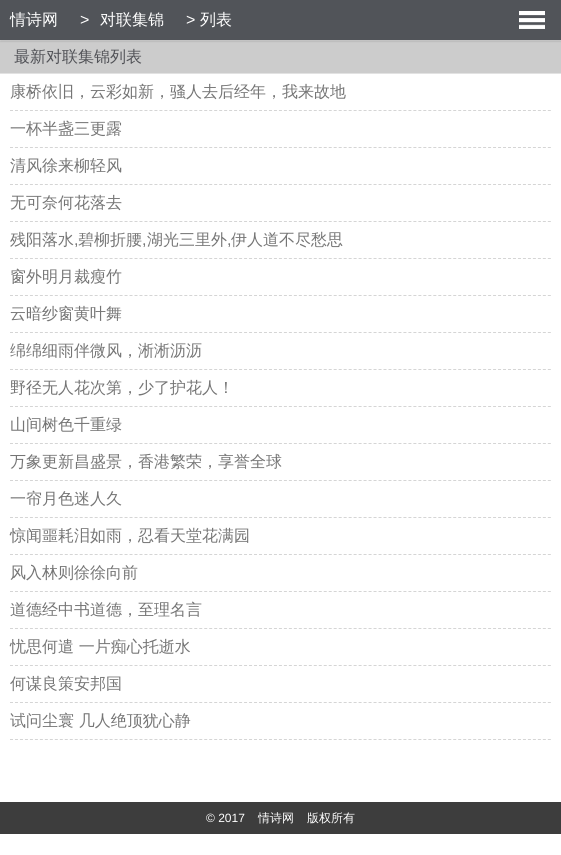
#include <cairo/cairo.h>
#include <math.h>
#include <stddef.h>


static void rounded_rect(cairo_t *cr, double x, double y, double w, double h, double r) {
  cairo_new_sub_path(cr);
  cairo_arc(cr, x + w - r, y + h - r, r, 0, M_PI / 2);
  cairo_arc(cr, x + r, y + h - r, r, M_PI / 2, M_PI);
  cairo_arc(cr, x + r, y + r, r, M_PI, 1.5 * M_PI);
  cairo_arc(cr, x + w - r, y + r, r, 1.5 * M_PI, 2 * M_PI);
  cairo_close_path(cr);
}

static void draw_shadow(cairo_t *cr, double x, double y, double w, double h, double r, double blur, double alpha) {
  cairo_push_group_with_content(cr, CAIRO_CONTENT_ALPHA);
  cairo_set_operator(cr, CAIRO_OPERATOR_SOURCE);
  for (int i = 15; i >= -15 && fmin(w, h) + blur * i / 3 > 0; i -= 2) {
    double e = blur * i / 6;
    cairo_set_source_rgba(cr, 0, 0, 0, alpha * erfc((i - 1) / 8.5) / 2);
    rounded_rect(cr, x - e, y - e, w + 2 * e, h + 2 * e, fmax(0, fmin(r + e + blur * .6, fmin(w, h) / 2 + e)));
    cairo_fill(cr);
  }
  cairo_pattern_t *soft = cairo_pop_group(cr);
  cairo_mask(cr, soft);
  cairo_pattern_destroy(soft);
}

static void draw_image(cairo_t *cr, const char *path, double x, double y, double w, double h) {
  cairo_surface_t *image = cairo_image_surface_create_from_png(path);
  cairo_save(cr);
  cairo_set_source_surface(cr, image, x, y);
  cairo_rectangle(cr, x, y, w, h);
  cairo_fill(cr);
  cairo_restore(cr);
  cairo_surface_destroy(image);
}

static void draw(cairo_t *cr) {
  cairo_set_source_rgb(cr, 1, 1, 1);
  cairo_paint(cr);
  cairo_set_source_rgb(cr, 204 / 255.0, 204 / 255.0, 204 / 255.0);
  cairo_rectangle(cr, 0, 41, 561, 32);
  cairo_fill(cr);
  cairo_set_source_rgb(cr, 226 / 255.0, 226 / 255.0, 226 / 255.0);
  cairo_rectangle(cr, 0, 40, 561, 1);
  cairo_fill(cr);
  cairo_set_source_rgb(cr, 0, 0, 0);
  draw_shadow(cr, 0, 1, 561, 40, 0, 1, 0.2);
  cairo_set_source_rgb(cr, 81 / 255.0, 84 / 255.0, 89 / 255.0);
  cairo_rectangle(cr, 0, 0, 561, 40);
  cairo_fill(cr);
  draw_image(cr, "images/1.png", 519, 11, 26, 18);
  cairo_set_source_rgb(cr, 226 / 255.0, 226 / 255.0, 226 / 255.0);
  cairo_rectangle(cr, 0, 73, 561, 1);
  cairo_fill(cr);
  cairo_new_path(cr);
  cairo_move_to(cr, 10, 110.5);
  cairo_line_to(cr, 551, 110.5);
  cairo_set_source_rgb(cr, 213 / 255.0, 213 / 255.0, 213 / 255.0);
  cairo_set_line_width(cr, 1);
  cairo_set_dash(cr, (double[]){3, 1.98}, 2, 0);
  cairo_stroke(cr);
  cairo_new_path(cr);
  cairo_move_to(cr, 10, 147.5);
  cairo_line_to(cr, 551, 147.5);
  cairo_stroke(cr);
  cairo_new_path(cr);
  cairo_move_to(cr, 10, 184.5);
  cairo_line_to(cr, 551, 184.5);
  cairo_stroke(cr);
  cairo_new_path(cr);
  cairo_move_to(cr, 10, 221.5);
  cairo_line_to(cr, 551, 221.5);
  cairo_stroke(cr);
  cairo_new_path(cr);
  cairo_move_to(cr, 10, 258.5);
  cairo_line_to(cr, 551, 258.5);
  cairo_stroke(cr);
  cairo_new_path(cr);
  cairo_move_to(cr, 10, 295.5);
  cairo_line_to(cr, 551, 295.5);
  cairo_stroke(cr);
  cairo_new_path(cr);
  cairo_move_to(cr, 10, 332.5);
  cairo_line_to(cr, 551, 332.5);
  cairo_stroke(cr);
  cairo_new_path(cr);
  cairo_move_to(cr, 10, 369.5);
  cairo_line_to(cr, 551, 369.5);
  cairo_stroke(cr);
  cairo_new_path(cr);
  cairo_move_to(cr, 10, 406.5);
  cairo_line_to(cr, 551, 406.5);
  cairo_stroke(cr);
  cairo_new_path(cr);
  cairo_move_to(cr, 10, 443.5);
  cairo_line_to(cr, 551, 443.5);
  cairo_stroke(cr);
  cairo_new_path(cr);
  cairo_move_to(cr, 10, 480.5);
  cairo_line_to(cr, 551, 480.5);
  cairo_stroke(cr);
  cairo_new_path(cr);
  cairo_move_to(cr, 10, 517.5);
  cairo_line_to(cr, 551, 517.5);
  cairo_stroke(cr);
  cairo_new_path(cr);
  cairo_move_to(cr, 10, 554.5);
  cairo_line_to(cr, 551, 554.5);
  cairo_stroke(cr);
  cairo_new_path(cr);
  cairo_move_to(cr, 10, 591.5);
  cairo_line_to(cr, 551, 591.5);
  cairo_stroke(cr);
  cairo_new_path(cr);
  cairo_move_to(cr, 10, 628.5);
  cairo_line_to(cr, 551, 628.5);
  cairo_stroke(cr);
  cairo_new_path(cr);
  cairo_move_to(cr, 10, 665.5);
  cairo_line_to(cr, 551, 665.5);
  cairo_stroke(cr);
  cairo_new_path(cr);
  cairo_move_to(cr, 10, 702.5);
  cairo_line_to(cr, 551, 702.5);
  cairo_stroke(cr);
  cairo_new_path(cr);
  cairo_move_to(cr, 10, 739.5);
  cairo_line_to(cr, 551, 739.5);
  cairo_stroke(cr);
  cairo_set_source_rgb(cr, 61 / 255.0, 61 / 255.0, 61 / 255.0);
  cairo_rectangle(cr, 0, 802, 561, 32);
  cairo_fill(cr);
  cairo_select_font_face(cr, "WenQuanYi Zen Hei Medium", CAIRO_FONT_SLANT_NORMAL, CAIRO_FONT_WEIGHT_NORMAL);
  cairo_set_font_size(cr, 16);
  cairo_set_source_rgb(cr, 1, 1, 1);
  cairo_move_to(cr, 10, 25);
  cairo_show_text(cr, "情诗网");
  cairo_select_font_face(cr, "Liberation Sans", CAIRO_FONT_SLANT_NORMAL, CAIRO_FONT_WEIGHT_NORMAL);
  cairo_move_to(cr, 80, 25);
  cairo_show_text(cr, ">");
  cairo_select_font_face(cr, "WenQuanYi Zen Hei Medium", CAIRO_FONT_SLANT_NORMAL, CAIRO_FONT_WEIGHT_NORMAL);
  cairo_move_to(cr, 100, 25);
  cairo_show_text(cr, "对联集锦");
  cairo_select_font_face(cr, "Liberation Sans", CAIRO_FONT_SLANT_NORMAL, CAIRO_FONT_WEIGHT_NORMAL);
  cairo_move_to(cr, 186, 25);
  cairo_show_text(cr, ">");
  cairo_select_font_face(cr, "WenQuanYi Zen Hei Medium", CAIRO_FONT_SLANT_NORMAL, CAIRO_FONT_WEIGHT_NORMAL);
  cairo_move_to(cr, 200, 25);
  cairo_show_text(cr, "列表");
  cairo_set_source_rgb(cr, 81 / 255.0, 82 / 255.0, 87 / 255.0);
  cairo_move_to(cr, 14, 62);
  cairo_show_text(cr, "最新对联集锦列表");
  cairo_set_source_rgb(cr, 117 / 255.0, 117 / 255.0, 117 / 255.0);
  cairo_move_to(cr, 10, 97);
  cairo_show_text(cr, "康桥依旧，云彩如新，骚人去后经年，我来故地");
  cairo_move_to(cr, 10, 134);
  cairo_show_text(cr, "一杯半盏三更露");
  cairo_move_to(cr, 10, 171);
  cairo_show_text(cr, "清风徐来柳轻风");
  cairo_move_to(cr, 10, 208);
  cairo_show_text(cr, "无可奈何花落去");
  cairo_move_to(cr, 10, 245);
  cairo_show_text(cr, "残阳落水");
  cairo_select_font_face(cr, "Liberation Sans", CAIRO_FONT_SLANT_NORMAL, CAIRO_FONT_WEIGHT_NORMAL);
  cairo_move_to(cr, 74, 245);
  cairo_show_text(cr, ",");
  cairo_select_font_face(cr, "WenQuanYi Zen Hei Medium", CAIRO_FONT_SLANT_NORMAL, CAIRO_FONT_WEIGHT_NORMAL);
  cairo_move_to(cr, 78, 245);
  cairo_show_text(cr, "碧柳折腰");
  cairo_select_font_face(cr, "Liberation Sans", CAIRO_FONT_SLANT_NORMAL, CAIRO_FONT_WEIGHT_NORMAL);
  cairo_move_to(cr, 142, 245);
  cairo_show_text(cr, ",");
  cairo_select_font_face(cr, "WenQuanYi Zen Hei Medium", CAIRO_FONT_SLANT_NORMAL, CAIRO_FONT_WEIGHT_NORMAL);
  cairo_move_to(cr, 147, 245);
  cairo_show_text(cr, "湖光三里外");
  cairo_select_font_face(cr, "Liberation Sans", CAIRO_FONT_SLANT_NORMAL, CAIRO_FONT_WEIGHT_NORMAL);
  cairo_move_to(cr, 227, 245);
  cairo_show_text(cr, ",");
  cairo_select_font_face(cr, "WenQuanYi Zen Hei Medium", CAIRO_FONT_SLANT_NORMAL, CAIRO_FONT_WEIGHT_NORMAL);
  cairo_move_to(cr, 231, 245);
  cairo_show_text(cr, "伊人道不尽愁思");
  cairo_move_to(cr, 10, 282);
  cairo_show_text(cr, "窗外明月裁瘦竹");
  cairo_move_to(cr, 10, 319);
  cairo_show_text(cr, "云暗纱窗黄叶舞");
  cairo_move_to(cr, 10, 356);
  cairo_show_text(cr, "绵绵细雨伴微风，淅淅沥沥");
  cairo_move_to(cr, 10, 393);
  cairo_show_text(cr, "野径无人花次第，少了护花人！");
  cairo_move_to(cr, 10, 430);
  cairo_show_text(cr, "山间树色千重绿");
  cairo_move_to(cr, 10, 467);
  cairo_show_text(cr, "万象更新昌盛景，香港繁荣，享誉全球");
  cairo_move_to(cr, 10, 504);
  cairo_show_text(cr, "一帘月色迷人久");
  cairo_move_to(cr, 10, 541);
  cairo_show_text(cr, "惊闻噩耗泪如雨，忍看天堂花满园");
  cairo_move_to(cr, 10, 578);
  cairo_show_text(cr, "风入林则徐徐向前");
  cairo_move_to(cr, 10, 615);
  cairo_show_text(cr, "道德经中书道德，至理名言");
  cairo_move_to(cr, 10, 652);
  cairo_show_text(cr, "忧思何遣 一片痴心托逝水");
  cairo_move_to(cr, 10, 689);
  cairo_show_text(cr, "何谋良策安邦国");
  cairo_move_to(cr, 10, 726);
  cairo_show_text(cr, "试问尘寰 几人绝顶犹心静");
  cairo_select_font_face(cr, "Liberation Sans", CAIRO_FONT_SLANT_NORMAL, CAIRO_FONT_WEIGHT_NORMAL);
  cairo_set_font_size(cr, 12);
  cairo_set_source_rgb(cr, 1, 1, 1);
  cairo_move_to(cr, 206, 822);
  cairo_show_text(cr, "© 2017");
  cairo_select_font_face(cr, "WenQuanYi Zen Hei Medium", CAIRO_FONT_SLANT_NORMAL, CAIRO_FONT_WEIGHT_NORMAL);
  cairo_move_to(cr, 258, 822);
  cairo_show_text(cr, "情诗网");
  cairo_move_to(cr, 307, 822);
  cairo_show_text(cr, "版权所有");
}

int main(void) {
  cairo_surface_t *surface = cairo_image_surface_create(CAIRO_FORMAT_RGB24, 561, 855);
  cairo_t *cr = cairo_create(surface);
  cairo_font_options_t *options = cairo_font_options_create();
  cairo_font_options_set_hint_metrics(options, CAIRO_HINT_METRICS_OFF);
  cairo_font_options_set_hint_style(options, CAIRO_HINT_STYLE_NONE);
  cairo_set_font_options(cr, options);
  cairo_set_miter_limit(cr, 4);
  draw(cr);
  cairo_surface_write_to_png(surface, "out.png");
  cairo_font_options_destroy(options);
  cairo_destroy(cr);
  cairo_surface_destroy(surface);
  return 0;
}
